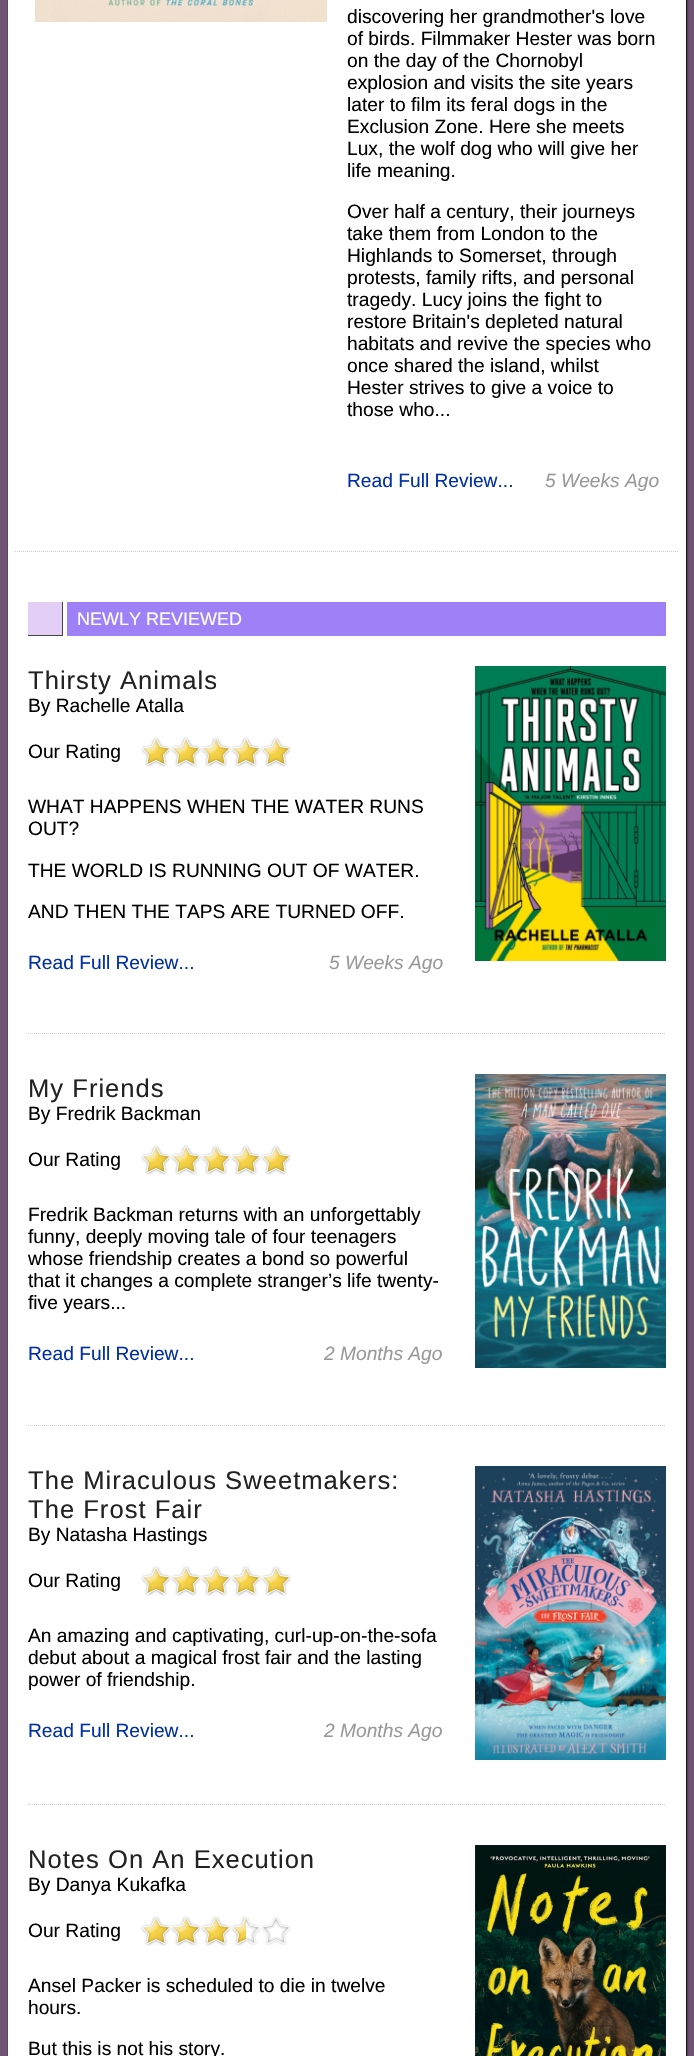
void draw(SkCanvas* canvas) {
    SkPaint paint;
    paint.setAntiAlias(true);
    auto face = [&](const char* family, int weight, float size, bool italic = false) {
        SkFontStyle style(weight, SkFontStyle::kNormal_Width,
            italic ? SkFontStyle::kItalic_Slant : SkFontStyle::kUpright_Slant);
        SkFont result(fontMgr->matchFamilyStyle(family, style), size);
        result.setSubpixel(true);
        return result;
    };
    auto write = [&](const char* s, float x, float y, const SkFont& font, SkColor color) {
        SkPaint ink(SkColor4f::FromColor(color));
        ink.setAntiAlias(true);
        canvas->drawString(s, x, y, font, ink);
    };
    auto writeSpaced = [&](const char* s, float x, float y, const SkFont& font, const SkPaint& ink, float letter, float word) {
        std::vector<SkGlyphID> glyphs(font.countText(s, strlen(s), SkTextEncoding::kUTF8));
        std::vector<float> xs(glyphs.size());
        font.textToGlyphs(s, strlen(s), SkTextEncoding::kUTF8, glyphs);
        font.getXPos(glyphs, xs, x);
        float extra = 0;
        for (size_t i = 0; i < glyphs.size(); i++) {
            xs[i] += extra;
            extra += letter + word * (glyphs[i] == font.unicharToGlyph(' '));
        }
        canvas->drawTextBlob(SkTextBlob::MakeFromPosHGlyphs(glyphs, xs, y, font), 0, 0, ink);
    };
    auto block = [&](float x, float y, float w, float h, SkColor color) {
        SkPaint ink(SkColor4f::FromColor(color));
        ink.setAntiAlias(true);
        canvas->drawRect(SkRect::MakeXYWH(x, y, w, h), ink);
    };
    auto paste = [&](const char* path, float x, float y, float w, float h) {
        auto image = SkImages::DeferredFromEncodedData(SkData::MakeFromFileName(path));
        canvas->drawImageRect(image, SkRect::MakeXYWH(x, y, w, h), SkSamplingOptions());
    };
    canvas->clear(SkColorSetRGB(111, 85, 115));
    paint.setColor(SK_ColorBLACK);
    paint.setMaskFilter(SkMaskFilter::MakeBlur(kNormal_SkBlurStyle, 1));
    canvas->drawRoundRect(SkRect::MakeXYWH(9, -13, 678, 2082), 10, 10, paint);
    paint.setMaskFilter(nullptr);
    paint.setMaskFilter(SkMaskFilter::MakeBlur(kNormal_SkBlurStyle, 0.5f));
    canvas->drawRoundRect(SkRect::MakeXYWH(8, -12, 678, 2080), 10, 10, paint);
    paint.setMaskFilter(nullptr);
    block(8, 0, 678, 2056, SK_ColorWHITE);
    paint.setStyle(SkPaint::kStroke_Style);
    paint.setStrokeWidth(1);
    paint.setColor(SkColorSetRGB(204, 204, 204));
    paint.setPathEffect(SkDashPathEffect::Make({{1, 1}}, 0));
    canvas->drawPath(SkPathBuilder().moveTo(15, 551.5f).lineTo(679, 551.5f).detach(), paint);
    paint.setPathEffect(nullptr);
    paste("pic1.png", 35, 0, 292, 22);
    auto kFont1 = face("Liberation Sans", 400, 19.2f);
    write("discovering her grandmother's love", 347, 23, kFont1, SK_ColorBLACK);
    write("of birds. Filmmaker Hester was born", 347, 45, kFont1, SK_ColorBLACK);
    write("on the day of the Chornobyl", 347, 67, kFont1, SK_ColorBLACK);
    write("explosion and visits the site years", 347, 89, kFont1, SK_ColorBLACK);
    write("later to film its feral dogs in the", 347, 111, kFont1, SK_ColorBLACK);
    write("Exclusion Zone. Here she meets", 347, 133, kFont1, SK_ColorBLACK);
    write("Lux, the wolf dog who will give her", 347, 155, kFont1, SK_ColorBLACK);
    write("life meaning.", 347, 177, kFont1, SK_ColorBLACK);
    write("Over half a century, their journeys", 347, 218, kFont1, SK_ColorBLACK);
    write("take them from London to the", 347, 240, kFont1, SK_ColorBLACK);
    write("Highlands to Somerset, through", 347, 262, kFont1, SK_ColorBLACK);
    write("protests, family rifts, and personal", 347, 284, kFont1, SK_ColorBLACK);
    write("tragedy. Lucy joins the fight to", 347, 306, kFont1, SK_ColorBLACK);
    write("restore Britain's depleted natural", 347, 328, kFont1, SK_ColorBLACK);
    write("habitats and revive the species who", 347, 350, kFont1, SK_ColorBLACK);
    write("once shared the island, whilst", 347, 372, kFont1, SK_ColorBLACK);
    write("Hester strives to give a voice to", 347, 394, kFont1, SK_ColorBLACK);
    write("those who...", 347, 416, kFont1, SK_ColorBLACK);
    write("Read Full Review...", 347, 487, kFont1, SkColorSetRGB(0, 47, 166));
    auto kFont2 = face("Liberation Sans", 400, 19.2f, true);
    write("5 Weeks Ago", 545, 487, kFont2, SkColorSetRGB(153, 153, 153));
    block(67, 602, 599, 34, SkColorSetRGB(159, 129, 247));
    block(28, 602, 34, 33, SkColorSetRGB(227, 206, 246));
    canvas->save();
    canvas->clipRect(SkRect::MakeXYWH(28, 602, 35, 34));
    paint.setStyle(SkPaint::kFill_Style);
    paint.setColor(SkColorSetRGB(68, 68, 68));
    canvas->drawPath(SkPathBuilder(SkPathFillType::kEvenOdd).moveTo(-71, 503).lineTo(162, 503).lineTo(162, 735).lineTo(-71, 735).close().moveTo(27, 601).lineTo(62, 601).lineTo(62, 635).lineTo(27, 635).close().detach(), paint);
    canvas->restore();
    auto kFont3 = face("Liberation Sans", 400, 18);
    write("NEWLY REVIEWED", 77, 625, kFont3, SK_ColorWHITE);
    paint.setStyle(SkPaint::kStroke_Style);
    paint.setColor(SkColorSetRGB(204, 204, 204));
    paint.setPathEffect(SkDashPathEffect::Make({{1, 1}}, 0));
    canvas->drawPath(SkPathBuilder().moveTo(28, 1033.5f).lineTo(666, 1033.5f).detach(), paint);
    paint.setPathEffect(nullptr);
    auto kFont4 = face("Liberation Sans", 400, 25.6f);
    paint.setStyle(SkPaint::kFill_Style);
    paint.setColor(SkColorSetRGB(34, 34, 34));
    writeSpaced("Thirsty Animals", 28, 689, kFont4, paint, 1, 0);
    write("By Rachelle Atalla", 28, 712, kFont1, SK_ColorBLACK);
    write("Our Rating", 28, 758, kFont1, SK_ColorBLACK);
    paste("pic2.png", 141, 737, 150, 30);
    write("WHAT HAPPENS WHEN THE WATER RUNS", 28, 813, kFont1, SK_ColorBLACK);
    write("OUT?", 28, 835, kFont1, SK_ColorBLACK);
    write("THE WORLD IS RUNNING OUT OF WATER.", 28, 877, kFont1, SK_ColorBLACK);
    write("AND THEN THE TAPS ARE TURNED OFF.", 28, 918, kFont1, SK_ColorBLACK);
    write("Read Full Review...", 28, 969, kFont1, SkColorSetRGB(0, 47, 166));
    write("5 Weeks Ago", 329, 969, kFont2, SkColorSetRGB(153, 153, 153));
    paste("pic3.png", 475, 666, 191, 295);
    paint.setStyle(SkPaint::kStroke_Style);
    paint.setColor(SkColorSetRGB(204, 204, 204));
    paint.setPathEffect(SkDashPathEffect::Make({{1, 1}}, 0));
    canvas->drawPath(SkPathBuilder().moveTo(28, 1425.5f).lineTo(666, 1425.5f).detach(), paint);
    paint.setPathEffect(nullptr);
    paint.setStyle(SkPaint::kFill_Style);
    paint.setColor(SkColorSetRGB(34, 34, 34));
    writeSpaced("My Friends", 28, 1097, kFont4, paint, 1, 0);
    write("By Fredrik Backman", 28, 1120, kFont1, SK_ColorBLACK);
    write("Our Rating", 28, 1166, kFont1, SK_ColorBLACK);
    paste("pic2.png", 141, 1145, 150, 30);
    write("Fredrik Backman returns with an unforgettably", 28, 1221, kFont1, SK_ColorBLACK);
    write("funny, deeply moving tale of four teenagers", 28, 1243, kFont1, SK_ColorBLACK);
    write("whose friendship creates a bond so powerful", 28, 1265, kFont1, SK_ColorBLACK);
    write("that it changes a complete stranger’s life twenty-", 28, 1287, kFont1, SK_ColorBLACK);
    write("five years...", 28, 1309, kFont1, SK_ColorBLACK);
    write("Read Full Review...", 28, 1360, kFont1, SkColorSetRGB(0, 47, 166));
    write("2 Months Ago", 324, 1360, kFont2, SkColorSetRGB(153, 153, 153));
    paste("pic4.png", 475, 1074, 191, 294);
    paint.setStyle(SkPaint::kStroke_Style);
    paint.setColor(SkColorSetRGB(204, 204, 204));
    paint.setPathEffect(SkDashPathEffect::Make({{1, 1}}, 0));
    canvas->drawPath(SkPathBuilder().moveTo(28, 1804.5f).lineTo(666, 1804.5f).detach(), paint);
    paint.setPathEffect(nullptr);
    paint.setStyle(SkPaint::kFill_Style);
    paint.setColor(SkColorSetRGB(34, 34, 34));
    writeSpaced("The Miraculous Sweetmakers:", 28, 1489, kFont4, paint, 1, 0);
    writeSpaced("The Frost Fair", 28, 1518, kFont4, paint, 1, 0);
    write("By Natasha Hastings", 28, 1541, kFont1, SK_ColorBLACK);
    write("Our Rating", 28, 1587, kFont1, SK_ColorBLACK);
    paste("pic2.png", 141, 1566, 150, 30);
    write("An amazing and captivating, curl-up-on-the-sofa", 28, 1642, kFont1, SK_ColorBLACK);
    write("debut about a magical frost fair and the lasting", 28, 1664, kFont1, SK_ColorBLACK);
    write("power of friendship.", 28, 1686, kFont1, SK_ColorBLACK);
    write("Read Full Review...", 28, 1737, kFont1, SkColorSetRGB(0, 47, 166));
    write("2 Months Ago", 324, 1737, kFont2, SkColorSetRGB(153, 153, 153));
    paste("pic5.png", 475, 1466, 191, 294);
    writeSpaced("Notes On An Execution", 28, 1868, kFont4, paint, 1, 0);
    write("By Danya Kukafka", 28, 1891, kFont1, SK_ColorBLACK);
    write("Our Rating", 28, 1937, kFont1, SK_ColorBLACK);
    paste("pic6.png", 246, 1916, 45, 30);
    paste("pic7.png", 141, 1916, 105, 30);
    write("Ansel Packer is scheduled to die in twelve", 28, 1992, kFont1, SK_ColorBLACK);
    write("hours.", 28, 2014, kFont1, SK_ColorBLACK);
    write("But this is not his story.", 28, 2055, kFont1, SK_ColorBLACK);
    paste("pic8.png", 475, 1845, 191, 211);
}
